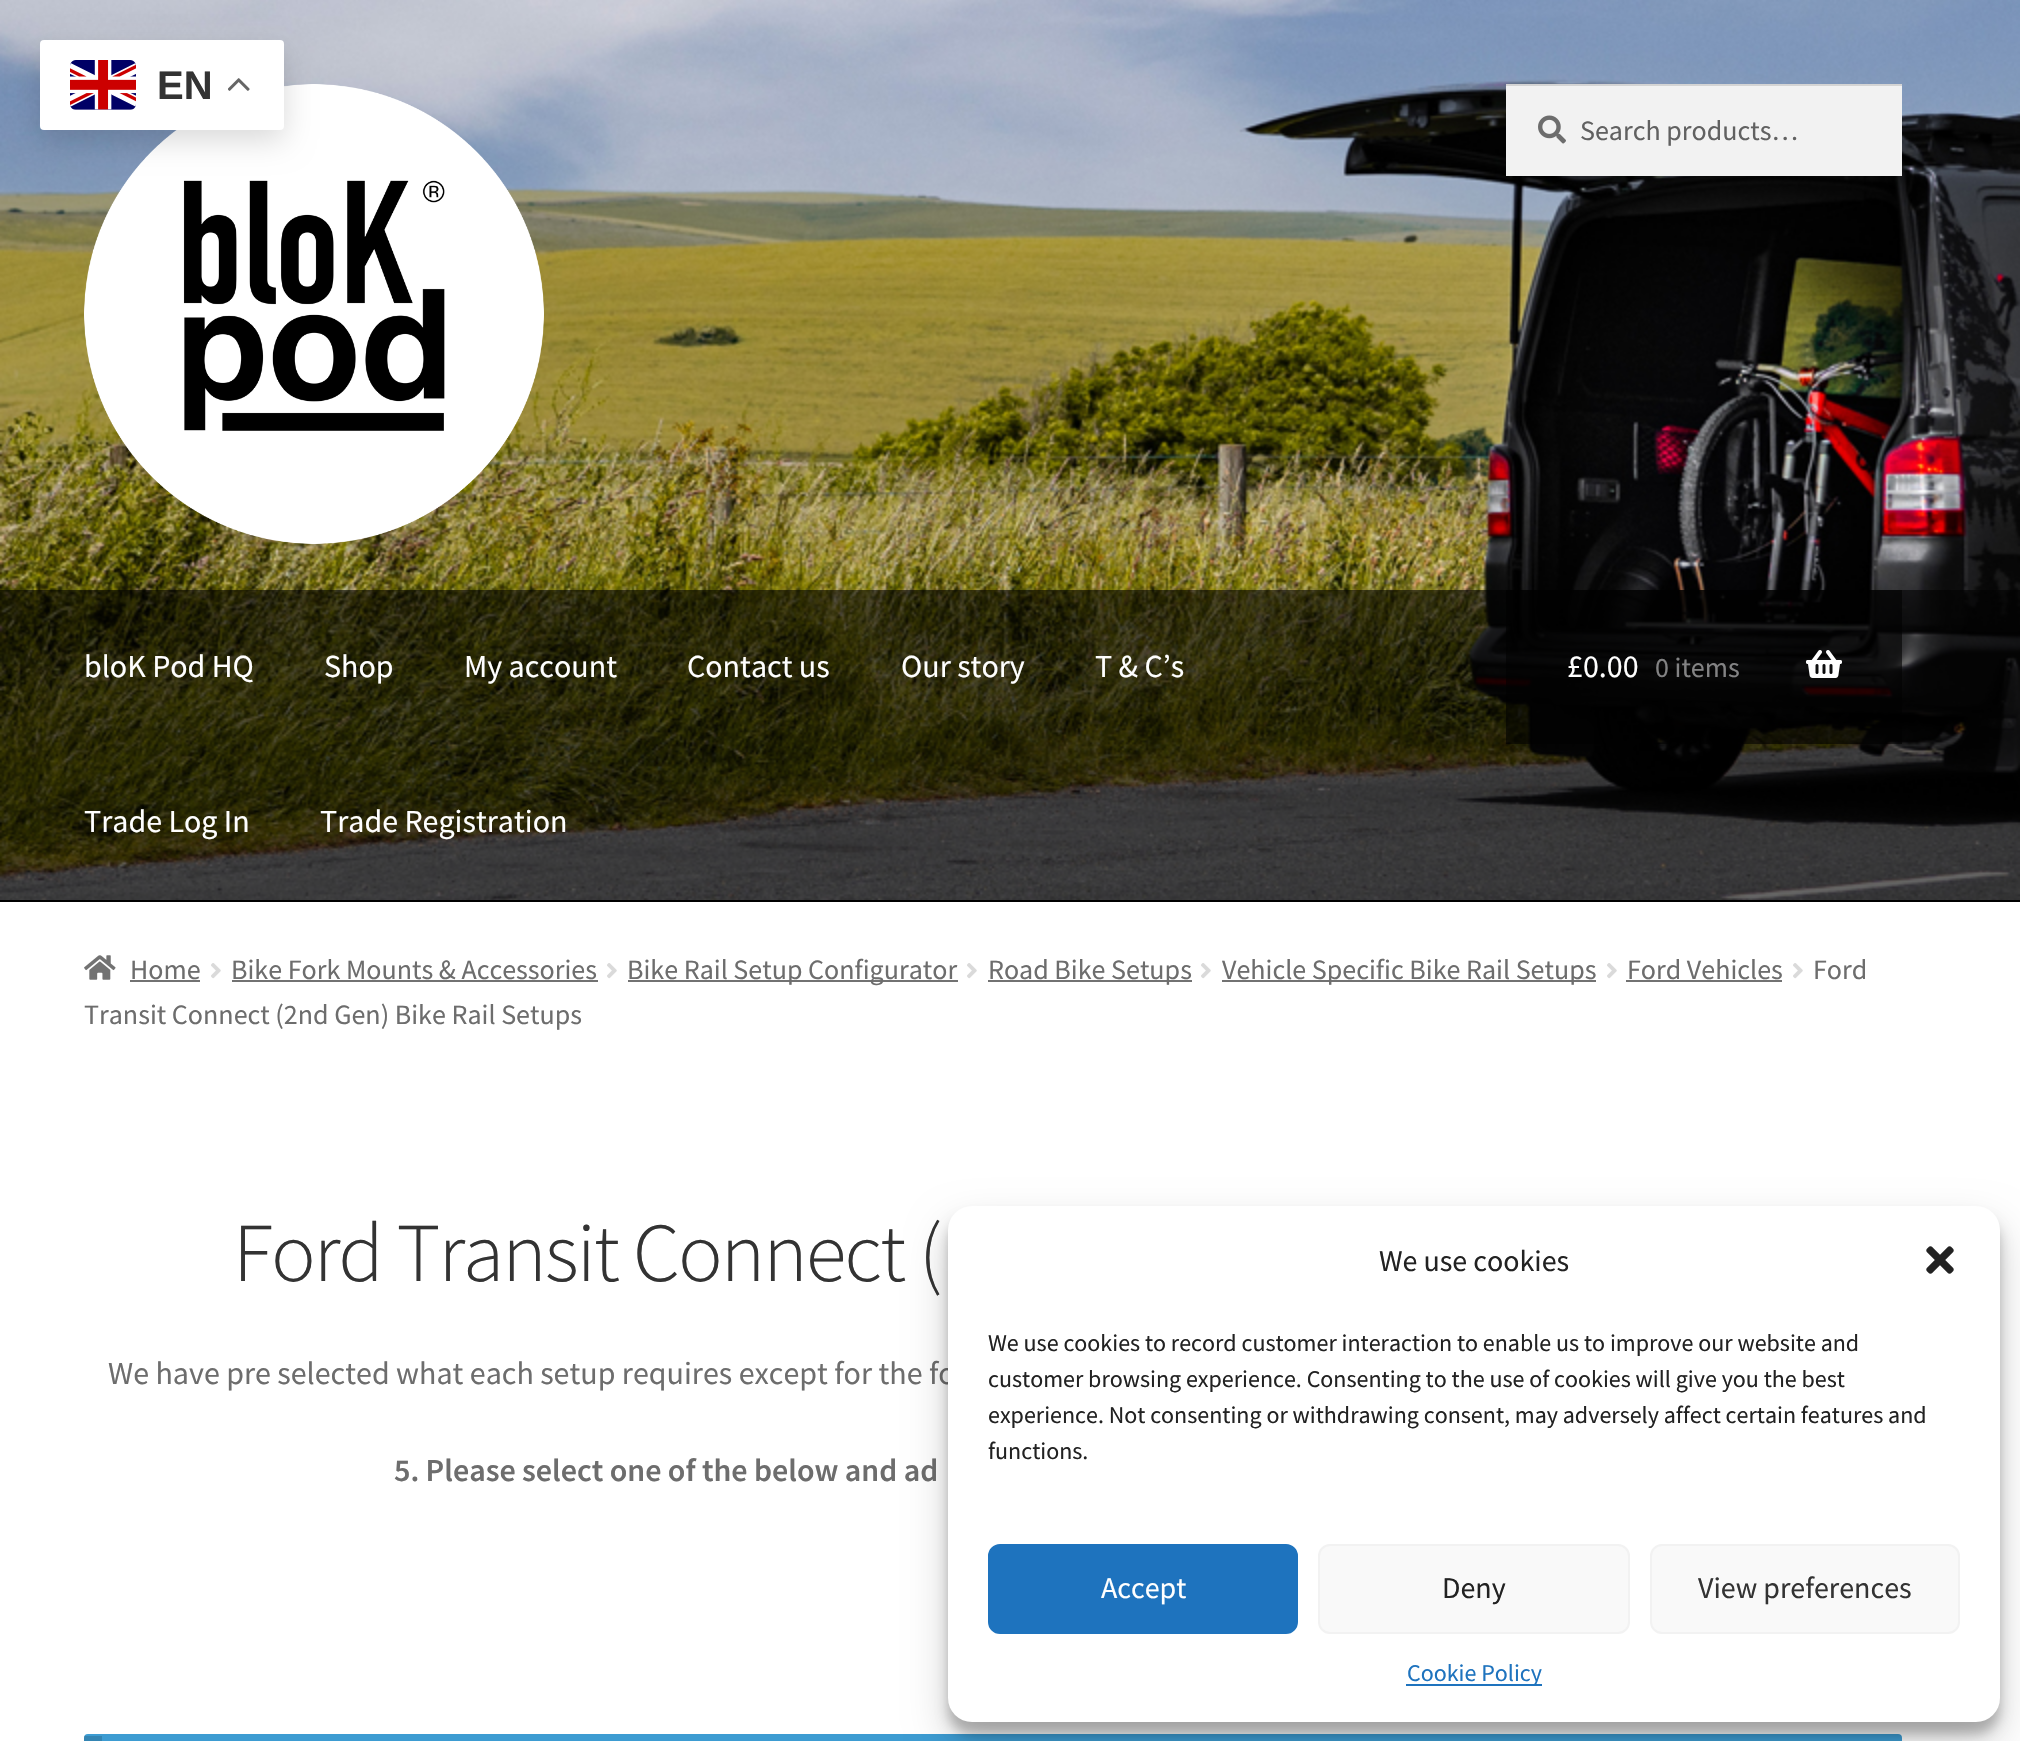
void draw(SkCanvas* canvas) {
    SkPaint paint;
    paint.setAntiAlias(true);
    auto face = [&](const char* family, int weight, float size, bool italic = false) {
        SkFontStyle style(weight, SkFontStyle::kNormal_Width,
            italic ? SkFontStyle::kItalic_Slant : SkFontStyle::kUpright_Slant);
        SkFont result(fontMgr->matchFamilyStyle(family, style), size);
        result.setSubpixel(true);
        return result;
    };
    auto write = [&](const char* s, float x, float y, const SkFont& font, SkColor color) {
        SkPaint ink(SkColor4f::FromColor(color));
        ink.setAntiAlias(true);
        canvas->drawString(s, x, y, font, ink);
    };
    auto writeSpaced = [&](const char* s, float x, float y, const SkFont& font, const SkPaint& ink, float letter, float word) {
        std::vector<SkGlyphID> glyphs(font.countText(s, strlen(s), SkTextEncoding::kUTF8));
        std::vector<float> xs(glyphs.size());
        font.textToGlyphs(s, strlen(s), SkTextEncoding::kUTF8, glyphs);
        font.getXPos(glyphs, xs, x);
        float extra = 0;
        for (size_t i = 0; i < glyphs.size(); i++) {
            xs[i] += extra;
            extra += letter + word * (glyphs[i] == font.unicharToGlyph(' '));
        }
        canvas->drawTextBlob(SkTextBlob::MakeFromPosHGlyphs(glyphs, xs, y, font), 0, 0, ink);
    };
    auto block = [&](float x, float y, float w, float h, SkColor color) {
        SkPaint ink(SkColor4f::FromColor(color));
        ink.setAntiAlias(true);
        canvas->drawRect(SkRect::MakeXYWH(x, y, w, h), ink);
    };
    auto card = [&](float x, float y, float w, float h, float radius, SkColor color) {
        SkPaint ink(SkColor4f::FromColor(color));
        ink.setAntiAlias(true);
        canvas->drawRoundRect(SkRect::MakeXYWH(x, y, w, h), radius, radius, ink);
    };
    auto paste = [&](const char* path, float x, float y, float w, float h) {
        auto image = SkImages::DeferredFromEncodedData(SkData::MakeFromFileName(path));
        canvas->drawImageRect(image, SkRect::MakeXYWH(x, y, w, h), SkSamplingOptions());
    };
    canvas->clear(SK_ColorWHITE);
    paste("pic3.png", 0, 0, 2020, 900);
    paste("pic4.png", 84, 84, 460, 460);
    paint.setColor(SkColorSetARGB(38, 0, 0, 0));
    paint.setMaskFilter(SkMaskFilter::MakeBlur(kNormal_SkBlurStyle, 15));
    canvas->drawRoundRect(SkRect::MakeXYWH(40, 50, 244, 90), 4, 4, paint);
    paint.setMaskFilter(nullptr);
    card(40, 40, 244, 90, 4, SK_ColorWHITE);
    paste("pic1.png", 70, 60, 66, 50);
    auto kFont1 = face("Liberation Sans", 700, 40);
    write("EN", 157, 99, kFont1, SkColorSetRGB(51, 51, 51));
    paste("pic2.png", 228, 78, 22, 13);
    block(0, 900, 2020, 2, SK_ColorBLACK);
    block(1506, 86, 396, 90, SkColorSetRGB(242, 242, 242));
    paste("pic5.png", 1538, 115, 28, 29);
    block(1506, 84, 396, 2, SkColorSetRGB(212, 212, 212));
    auto kFont2 = face("Source Sans Pro", 400, 28);
    write("Search products…", 1580, 140, kFont2, SkColorSetRGB(97, 97, 97));
    block(0, 590, 2020, 310, SkColorSetARGB(153, 0, 0, 0));
    auto kFont3 = face("Source Sans Pro", 400, 32);
    write("bloK Pod HQ", 84, 677, kFont3, SK_ColorWHITE);
    write("Shop", 324, 677, kFont3, SK_ColorWHITE);
    write("My account", 464, 677, kFont3, SK_ColorWHITE);
    write("Contact us", 687, 677, kFont3, SK_ColorWHITE);
    write("Our story", 901, 677, kFont3, SK_ColorWHITE);
    write("T & C’s", 1095, 677, kFont3, SK_ColorWHITE);
    write("Trade Log In", 84, 832, kFont3, SK_ColorWHITE);
    write("Trade Registration", 320, 832, kFont3, SK_ColorWHITE);
    block(1506, 590, 396, 154, SkColorSetARGB(153, 0, 0, 0));
    write("£0.00", 1567, 677, kFont3, SK_ColorWHITE);
    write("0 items", 1655, 677, kFont2, SkColorSetRGB(131, 131, 132));
    paste("pic6.png", 1806, 650, 36, 28);
    paste("pic7.png", 84, 955, 32, 25);
    write("Home", 130, 979, kFont2, SkColorSetRGB(109, 109, 109));
    block(130, 980, 70, 2, SkColorSetRGB(114, 114, 114));
    paste("pic8.png", 211, 963, 10, 16);
    write("Bike Fork Mounts & Accessories", 231, 979, kFont2, SkColorSetRGB(109, 109, 109));
    block(232, 980, 366, 2, SkColorSetRGB(114, 114, 114));
    paste("pic8.png", 607, 963, 10, 16);
    block(628, 980, 330, 2, SkColorSetRGB(114, 114, 114));
    write("Bike Rail Setup Configurator", 627, 979, kFont2, SkColorSetRGB(109, 109, 109));
    paste("pic8.png", 967, 963, 10, 16);
    block(988, 980, 204, 2, SkColorSetRGB(114, 114, 114));
    write("Road Bike Setups", 988, 979, kFont2, SkColorSetRGB(109, 109, 109));
    paste("pic8.png", 1201, 963, 10, 16);
    block(1222, 980, 374, 2, SkColorSetRGB(114, 114, 114));
    write("Vehicle Specific Bike Rail Setups", 1222, 979, kFont2, SkColorSetRGB(109, 109, 109));
    paste("pic8.png", 1607, 963, 10, 16);
    write("Ford Vehicles", 1627, 979, kFont2, SkColorSetRGB(109, 109, 109));
    block(1626, 980, 156, 2, SkColorSetRGB(114, 114, 114));
    paste("pic8.png", 1793, 963, 10, 16);
    write("Ford", 1813, 979, kFont2, SkColorSetRGB(109, 109, 109));
    write("Transit Connect (2nd Gen) Bike Rail Setups", 84, 1024, kFont2, SkColorSetRGB(109, 109, 109));
    auto kFont4 = face("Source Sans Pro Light", 300, 83.75f);
    paint.setColor(SkColorSetRGB(51, 51, 51));
    writeSpaced("Ford Transit Connect (", 233, 1281, kFont4, paint, -2, 0);
    write("We have pre selected what each setup requires except for the fo", 108, 1384, kFont3, SkColorSetRGB(109, 109, 109));
    auto kFont5 = face("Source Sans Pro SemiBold", 600, 32);
    write("5. Please select one of the below and ad", 394, 1481, kFont5, SkColorSetRGB(109, 109, 109));
    card(84, 1734, 1818, 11, 4, SkColorSetRGB(61, 156, 210));
    block(84, 1736, 18, 5, SkColorSetARGB(38, 0, 0, 0));
    paint.setColor(SkColorSetARGB(59, 0, 0, 0));
    paint.setMaskFilter(SkMaskFilter::MakeBlur(kNormal_SkBlurStyle, 6));
    canvas->drawRoundRect(SkRect::MakeXYWH(948, 1218, 1052, 516), 24, 24, paint);
    paint.setMaskFilter(nullptr);
    paint.setColor(SkColorSetARGB(48, 0, 0, 0));
    paint.setMaskFilter(SkMaskFilter::MakeBlur(kNormal_SkBlurStyle, 20));
    canvas->drawRoundRect(SkRect::MakeXYWH(948, 1226, 1052, 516), 24, 24, paint);
    paint.setMaskFilter(nullptr);
    card(948, 1206, 1052, 516, 24, SK_ColorWHITE);
    auto kFont6 = face("Source Sans Pro", 400, 30);
    write("We use cookies", 1379, 1271, kFont6, SkColorSetRGB(34, 34, 34));
    paste("pic9.png", 1926, 1246, 28, 28);
    auto kFont7 = face("Source Sans Pro", 400, 24);
    write("We use cookies to record customer interaction to enable us to improve our website and", 988, 1351, kFont7, SkColorSetRGB(34, 34, 34));
    write("customer browsing experience. Consenting to the use of cookies will give you the best", 988, 1387, kFont7, SkColorSetRGB(34, 34, 34));
    write("experience. Not consenting or withdrawing consent, may adversely affect certain features and", 988, 1423, kFont7, SkColorSetRGB(34, 34, 34));
    write("functions.", 988, 1459, kFont7, SkColorSetRGB(34, 34, 34));
    paint.setColor(SkColorSetRGB(30, 115, 190));
    canvas->drawRoundRect(SkRect::MakeXYWH(989, 1545, 308, 88), 11, 11, paint);
    paint.setStyle(SkPaint::kStroke_Style);
    paint.setStrokeWidth(2);
    canvas->drawRoundRect(SkRect::MakeXYWH(989, 1545, 308, 88), 11, 11, paint);
    write("Accept", 1101, 1598, kFont6, SK_ColorWHITE);
    paint.setStyle(SkPaint::kFill_Style);
    paint.setColor(SkColorSetRGB(249, 249, 249));
    canvas->drawRoundRect(SkRect::MakeXYWH(1319, 1545, 310, 88), 11, 11, paint);
    paint.setStyle(SkPaint::kStroke_Style);
    paint.setColor(SkColorSetRGB(242, 242, 242));
    canvas->drawRoundRect(SkRect::MakeXYWH(1319, 1545, 310, 88), 11, 11, paint);
    write("Deny", 1442, 1598, kFont6, SkColorSetRGB(34, 34, 34));
    paint.setStyle(SkPaint::kFill_Style);
    paint.setColor(SkColorSetRGB(249, 249, 249));
    canvas->drawRoundRect(SkRect::MakeXYWH(1651, 1545, 308, 88), 11, 11, paint);
    paint.setStyle(SkPaint::kStroke_Style);
    paint.setColor(SkColorSetRGB(242, 242, 242));
    canvas->drawRoundRect(SkRect::MakeXYWH(1651, 1545, 308, 88), 11, 11, paint);
    write("View preferences", 1698, 1598, kFont6, SkColorSetRGB(51, 51, 51));
    block(1406, 1684, 136, 2, SkColorSetRGB(30, 115, 190));
    write("Cookie Policy", 1407, 1681, kFont7, SkColorSetRGB(30, 115, 190));
}
